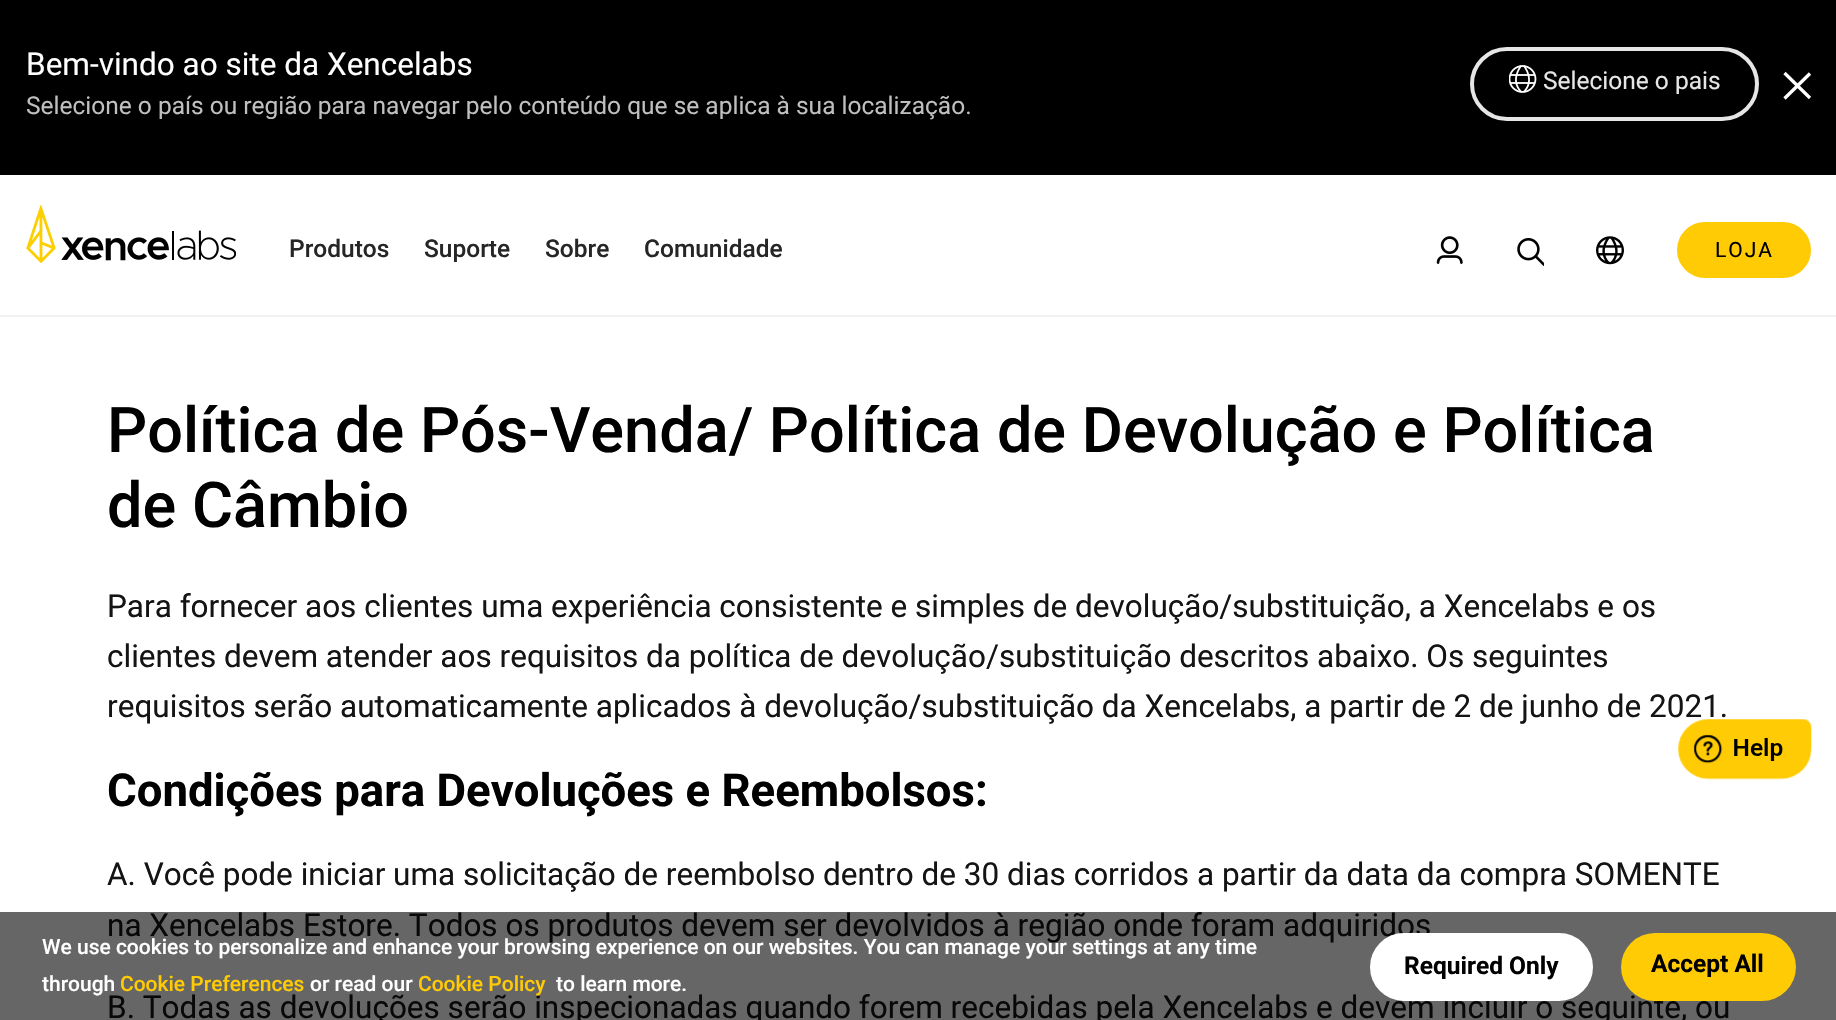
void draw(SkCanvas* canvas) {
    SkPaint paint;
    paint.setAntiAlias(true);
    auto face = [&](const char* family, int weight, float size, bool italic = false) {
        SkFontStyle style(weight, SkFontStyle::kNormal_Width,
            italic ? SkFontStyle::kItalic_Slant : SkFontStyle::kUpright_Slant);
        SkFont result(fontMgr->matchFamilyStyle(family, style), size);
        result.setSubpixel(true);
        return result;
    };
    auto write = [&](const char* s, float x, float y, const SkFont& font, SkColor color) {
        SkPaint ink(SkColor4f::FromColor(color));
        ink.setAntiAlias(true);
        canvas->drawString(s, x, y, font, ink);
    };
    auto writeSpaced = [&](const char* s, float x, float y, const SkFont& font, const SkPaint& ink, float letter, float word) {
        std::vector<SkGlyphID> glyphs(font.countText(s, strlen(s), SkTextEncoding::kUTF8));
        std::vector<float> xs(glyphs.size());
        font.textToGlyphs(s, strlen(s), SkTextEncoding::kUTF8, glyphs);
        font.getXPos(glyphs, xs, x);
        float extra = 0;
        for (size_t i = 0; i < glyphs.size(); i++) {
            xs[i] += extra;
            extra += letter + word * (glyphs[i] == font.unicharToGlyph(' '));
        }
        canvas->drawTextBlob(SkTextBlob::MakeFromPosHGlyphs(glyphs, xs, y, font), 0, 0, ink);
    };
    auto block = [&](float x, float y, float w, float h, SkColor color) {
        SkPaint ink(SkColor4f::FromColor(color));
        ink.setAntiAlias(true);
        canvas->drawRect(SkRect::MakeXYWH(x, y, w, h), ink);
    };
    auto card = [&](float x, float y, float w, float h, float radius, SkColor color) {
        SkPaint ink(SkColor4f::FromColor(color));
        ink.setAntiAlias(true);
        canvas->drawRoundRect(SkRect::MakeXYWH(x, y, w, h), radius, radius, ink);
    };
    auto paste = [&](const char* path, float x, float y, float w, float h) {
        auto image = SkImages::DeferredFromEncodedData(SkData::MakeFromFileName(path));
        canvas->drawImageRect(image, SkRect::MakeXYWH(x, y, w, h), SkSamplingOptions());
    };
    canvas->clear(SK_ColorWHITE);
    block(0, 912, 1836, 108, SkColorSetRGB(102, 102, 102));
    block(0, 0, 1836, 175, SK_ColorBLACK);
    auto kFont1 = face("Roboto", 400, 31.5f);
    write("Bem-vindo ao site da Xencelabs", 26, 75, kFont1, SK_ColorWHITE);
    auto kFont2 = face("Roboto", 400, 24.5f);
    write("Selecione o país ou região para navegar pelo conteúdo que se aplica à sua localização.", 26, 114, kFont2, SkColorSetRGB(191, 191, 191));
    paint.setStyle(SkPaint::kStroke_Style);
    paint.setStrokeWidth(4);
    paint.setColor(SkColorSetRGB(230, 230, 230));
    canvas->drawRoundRect(SkRect::MakeXYWH(1472, 49, 285, 70), 35, 35, paint);
    paste("pic1.png", 1509, 65, 28, 28);
    write("Selecione o pais", 1543, 89, kFont2, SkColorSetRGB(230, 230, 230));
    paint.setStrokeWidth(3.3f);
    paint.setColor(SK_ColorWHITE);
    canvas->drawPath(SkPathBuilder().moveTo(1784.5f, 73).lineTo(1810, 98).moveTo(1810, 73.5f).lineTo(1784.5f, 98.5f).detach(), paint);
    paint.setStyle(SkPaint::kFill_Style);
    paint.setColor(SkColorSetRGB(242, 242, 242));
    canvas->drawPath(SkPathBuilder().moveTo(0, 315).lineTo(0, 317).lineTo(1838, 317).lineTo(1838, 177).lineTo(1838, 315).close().detach(), paint);
    paste("pic2.png", 26, 205, 210, 58);
    auto kFont3 = face("Roboto", 500, 24.5f);
    write("Produtos", 289, 257, kFont3, SkColorSetRGB(38, 38, 38));
    write("Suporte", 424, 257, kFont3, SkColorSetRGB(38, 38, 38));
    write("Sobre", 545, 257, kFont3, SkColorSetRGB(38, 38, 38));
    write("Comunidade", 644, 257, kFont3, SkColorSetRGB(38, 38, 38));
    paste("pic3.png", 1436, 236, 27, 28);
    paste("pic4.png", 1517, 238, 27, 28);
    paste("pic5.png", 1596, 236, 28, 29);
    paint.setColor(SkColorSetRGB(255, 203, 5));
    canvas->drawRoundRect(SkRect::MakeXYWH(1679, 224, 130, 52), 26, 26, paint);
    paint.setStyle(SkPaint::kStroke_Style);
    paint.setStrokeWidth(4);
    canvas->drawRoundRect(SkRect::MakeXYWH(1679, 224, 130, 52), 26, 26, paint);
    auto kFont4 = face("Roboto", 400, 21);
    paint.setStyle(SkPaint::kFill_Style);
    paint.setColor(SK_ColorBLACK);
    writeSpaced("LOJA", 1715, 257, kFont4, paint, 2, 0);
    auto kFont5 = face("Roboto", 500, 63);
    write("Política de Pós-Venda/ Política de Devolução e Política", 107, 452, kFont5, SK_ColorBLACK);
    write("de Câmbio", 107, 527, kFont5, SK_ColorBLACK);
    write("Para fornecer aos clientes uma experiência consistente e simples de devolução/substituição, a Xencelabs e os", 107, 617, kFont1, SkColorSetRGB(20, 20, 20));
    write("clientes devem atender aos requisitos da política de devolução/substituição descritos abaixo. Os seguintes", 107, 667, kFont1, SkColorSetRGB(20, 20, 20));
    write("requisitos serão automaticamente aplicados à devolução/substituição da Xencelabs, a partir de 2 de junho de 2021.", 107, 717, kFont1, SkColorSetRGB(20, 20, 20));
    auto kFont6 = face("Roboto", 700, 45.5f);
    write("Condições para Devoluções e Reembolsos:", 107, 806, kFont6, SK_ColorBLACK);
    write("A. Você pode iniciar uma solicitação de reembolso dentro de 30 dias corridos a partir da data da compra SOMENTE", 107, 885, kFont1, SkColorSetRGB(20, 20, 20));
    write("na Xencelabs Estore. Todos os produtos devem ser devolvidos à região onde foram adquiridos", 107, 936, kFont1, SkColorSetRGB(8, 8, 8));
    write("B. Todas as devoluções serão inspecionadas quando forem recebidas pela Xencelabs e devem incluir o seguinte, ou", 107, 1018, kFont1, SkColorSetRGB(8, 8, 8));
    paste("pic6.png", 1678, 719, 134, 61);
    auto kFont7 = face("Roboto", 500, 21);
    write("We use cookies to personalize and enhance your browsing experience on our websites. You can manage your settings at any time", 42, 954, kFont7, SK_ColorWHITE);
    write("through", 42, 991, kFont7, SK_ColorWHITE);
    write("Cookie Preferences", 120, 991, kFont7, SkColorSetRGB(255, 203, 5));
    write("or read our", 310, 991, kFont7, SK_ColorWHITE);
    write("Cookie Policy", 418, 991, kFont7, SkColorSetRGB(255, 203, 5));
    write("to learn more.", 556, 991, kFont7, SK_ColorWHITE);
    paint.setColor(SK_ColorWHITE);
    canvas->drawRoundRect(SkRect::MakeXYWH(1371, 934, 221, 66), 33, 33, paint);
    paint.setStyle(SkPaint::kStroke_Style);
    paint.setStrokeWidth(2);
    canvas->drawRoundRect(SkRect::MakeXYWH(1371, 934, 221, 66), 33, 33, paint);
    auto kFont8 = face("Roboto", 700, 24.5f);
    write("Required Only", 1404, 974, kFont8, SK_ColorBLACK);
    card(1621, 933, 175, 68, 34, SkColorSetRGB(255, 203, 5));
    write("Accept All", 1651, 972, kFont8, SK_ColorBLACK);
}
